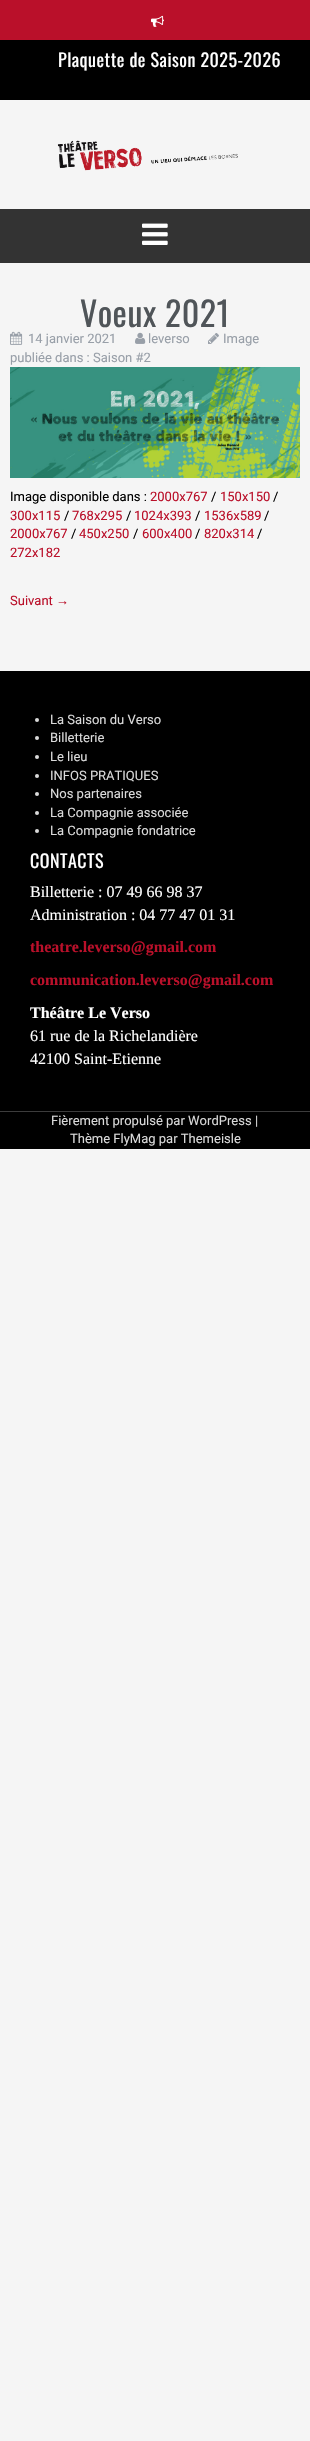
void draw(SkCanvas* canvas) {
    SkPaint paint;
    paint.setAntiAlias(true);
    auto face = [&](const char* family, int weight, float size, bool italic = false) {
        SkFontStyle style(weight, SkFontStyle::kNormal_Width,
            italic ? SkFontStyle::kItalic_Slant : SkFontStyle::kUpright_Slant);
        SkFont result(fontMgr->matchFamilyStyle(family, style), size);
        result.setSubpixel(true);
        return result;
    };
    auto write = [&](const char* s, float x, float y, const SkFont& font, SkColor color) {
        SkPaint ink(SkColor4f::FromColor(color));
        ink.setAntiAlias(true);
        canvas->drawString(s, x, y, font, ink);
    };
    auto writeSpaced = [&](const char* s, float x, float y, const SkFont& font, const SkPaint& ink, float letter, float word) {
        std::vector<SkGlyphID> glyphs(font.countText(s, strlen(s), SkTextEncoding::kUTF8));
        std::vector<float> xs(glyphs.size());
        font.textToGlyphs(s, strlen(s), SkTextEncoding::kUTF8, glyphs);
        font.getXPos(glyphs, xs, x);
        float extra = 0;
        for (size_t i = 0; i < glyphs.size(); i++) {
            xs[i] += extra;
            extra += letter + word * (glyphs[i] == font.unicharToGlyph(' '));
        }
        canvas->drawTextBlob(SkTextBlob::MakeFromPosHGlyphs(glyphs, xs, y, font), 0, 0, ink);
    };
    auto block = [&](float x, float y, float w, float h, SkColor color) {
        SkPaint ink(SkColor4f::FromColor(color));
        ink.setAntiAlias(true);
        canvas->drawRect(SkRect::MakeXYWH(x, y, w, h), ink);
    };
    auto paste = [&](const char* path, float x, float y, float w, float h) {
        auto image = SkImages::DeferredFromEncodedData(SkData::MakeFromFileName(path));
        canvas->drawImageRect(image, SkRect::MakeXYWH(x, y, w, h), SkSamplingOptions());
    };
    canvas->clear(SkColorSetRGB(245, 245, 245));
    block(0, 0, 310, 40, SkColorSetRGB(186, 16, 42));
    paste("pic1.png", 151, 15, 13, 12);
    block(0, 40, 310, 60, SK_ColorBLACK);
    auto kFont1 = face("Oswald", 400, 18);
    paint.setColor(SK_ColorWHITE);
    writeSpaced("Plaquette de Saison 2025-2026", 58, 67, kFont1, paint, 0.5f, 0);
    paste("pic2.png", 57, 140, 181, 31);
    block(0, 209, 310, 54, SkColorSetRGB(51, 51, 51));
    paste("pic3.png", 142, 223, 26, 22);
    auto kFont2 = face("Oswald", 400, 34);
    paint.setColor(SkColorSetRGB(80, 85, 89));
    writeSpaced("Voeux 2021", 80, 327, kFont2, paint, 0.5f, 0);
    paste("pic4.png", 208, 333, 11, 11);
    auto kFont3 = face("Roboto", 400, 13);
    write("Image", 223, 343, kFont3, SkColorSetRGB(152, 159, 168));
    write("publiée dans : Saison #2", 10, 362, kFont3, SkColorSetRGB(152, 159, 168));
    paste("pic5.png", 10, 331, 13, 14);
    write("14 janvier 2021", 28, 343, kFont3, SkColorSetRGB(152, 159, 168));
    paste("pic6.png", 135, 332, 11, 12);
    write("leverso", 148, 343, kFont3, SkColorSetRGB(152, 159, 168));
    paste("pic7.png", 10, 367, 290, 111);
    write("Image disponible dans :", 10, 501, kFont3, SK_ColorBLACK);
    write("2000x767", 150, 501, kFont3, SkColorSetRGB(186, 16, 42));
    write("/", 211, 501, kFont3, SK_ColorBLACK);
    write("150x150", 220, 501, kFont3, SkColorSetRGB(186, 16, 42));
    write("/", 273, 501, kFont3, SK_ColorBLACK);
    write("300x115", 10, 520, kFont3, SkColorSetRGB(186, 16, 42));
    write("/", 64, 520, kFont3, SK_ColorBLACK);
    write("768x295", 72, 520, kFont3, SkColorSetRGB(186, 16, 42));
    write("/", 126, 520, kFont3, SK_ColorBLACK);
    write("1024x393", 134, 520, kFont3, SkColorSetRGB(186, 16, 42));
    write("/", 195, 520, kFont3, SK_ColorBLACK);
    write("1536x589", 204, 520, kFont3, SkColorSetRGB(186, 16, 42));
    write("/", 264, 520, kFont3, SK_ColorBLACK);
    write("2000x767", 10, 538, kFont3, SkColorSetRGB(186, 16, 42));
    write("/", 71, 538, kFont3, SK_ColorBLACK);
    write("450x250", 79, 538, kFont3, SkColorSetRGB(186, 16, 42));
    write("/", 133, 538, kFont3, SK_ColorBLACK);
    write("600x400", 142, 538, kFont3, SkColorSetRGB(186, 16, 42));
    write("/", 195, 538, kFont3, SK_ColorBLACK);
    write("820x314", 204, 538, kFont3, SkColorSetRGB(186, 16, 42));
    write("/", 257, 538, kFont3, SK_ColorBLACK);
    write("272x182", 10, 557, kFont3, SkColorSetRGB(186, 16, 42));
    write("Suivant", 10, 605, kFont3, SkColorSetRGB(186, 16, 42));
    auto kFont4 = face("Liberation Sans", 400, 13);
    write("→", 56, 605, kFont4, SkColorSetRGB(186, 16, 42));
    block(0, 671, 310, 440, SK_ColorBLACK);
    block(0, 1111, 310, 1, SkColorSetRGB(60, 60, 60));
    paint.setColor(SkColorSetRGB(218, 218, 218));
    canvas->drawCircle(37, 720, 2, paint);
    write("La Saison du Verso", 50, 724, kFont3, SkColorSetRGB(218, 218, 218));
    canvas->drawCircle(37, 738, 2, paint);
    write("Billetterie", 50, 742, kFont3, SkColorSetRGB(218, 218, 218));
    canvas->drawCircle(37, 757, 2, paint);
    write("Le lieu", 50, 761, kFont3, SkColorSetRGB(218, 218, 218));
    canvas->drawCircle(37, 776, 2, paint);
    write("INFOS PRATIQUES", 50, 780, kFont3, SkColorSetRGB(218, 218, 218));
    canvas->drawCircle(37, 794, 2, paint);
    write("Nos partenaires", 50, 798, kFont3, SkColorSetRGB(218, 218, 218));
    canvas->drawCircle(37, 813, 2, paint);
    write("La Compagnie associée", 50, 817, kFont3, SkColorSetRGB(218, 218, 218));
    canvas->drawCircle(37, 831, 2, paint);
    write("La Compagnie fondatrice", 50, 835, kFont3, SkColorSetRGB(218, 218, 218));
    paint.setColor(SK_ColorWHITE);
    writeSpaced("CONTACTS", 30, 868, kFont1, paint, 0.5f, 0);
    auto kFont5 = face("Liberation Serif", 400, 16);
    write("Billetterie : 07 49 66 98 37", 30, 897, kFont5, SK_ColorWHITE);
    write("Administration : 04 77 47 01 31", 30, 920, kFont5, SK_ColorWHITE);
    auto kFont6 = face("Liberation Serif", 700, 16);
    write("theatre.leverso@gmail.com", 30, 952, kFont6, SkColorSetRGB(186, 16, 42));
    write("communication.leverso@gmail.com", 30, 985, kFont6, SkColorSetRGB(186, 16, 42));
    write("Théâtre Le Verso", 30, 1018, kFont6, SK_ColorWHITE);
    write("61 rue de la Richelandière", 30, 1041, kFont5, SK_ColorWHITE);
    write("42100 Saint-Etienne", 30, 1064, kFont5, SK_ColorWHITE);
    block(0, 1112, 310, 37, SK_ColorBLACK);
    write("Fièrement propulsé par WordPress |", 51, 1125, kFont3, SkColorSetRGB(218, 218, 218));
    write("Thème FlyMag par Themeisle", 70, 1143, kFont3, SkColorSetRGB(218, 218, 218));
}
